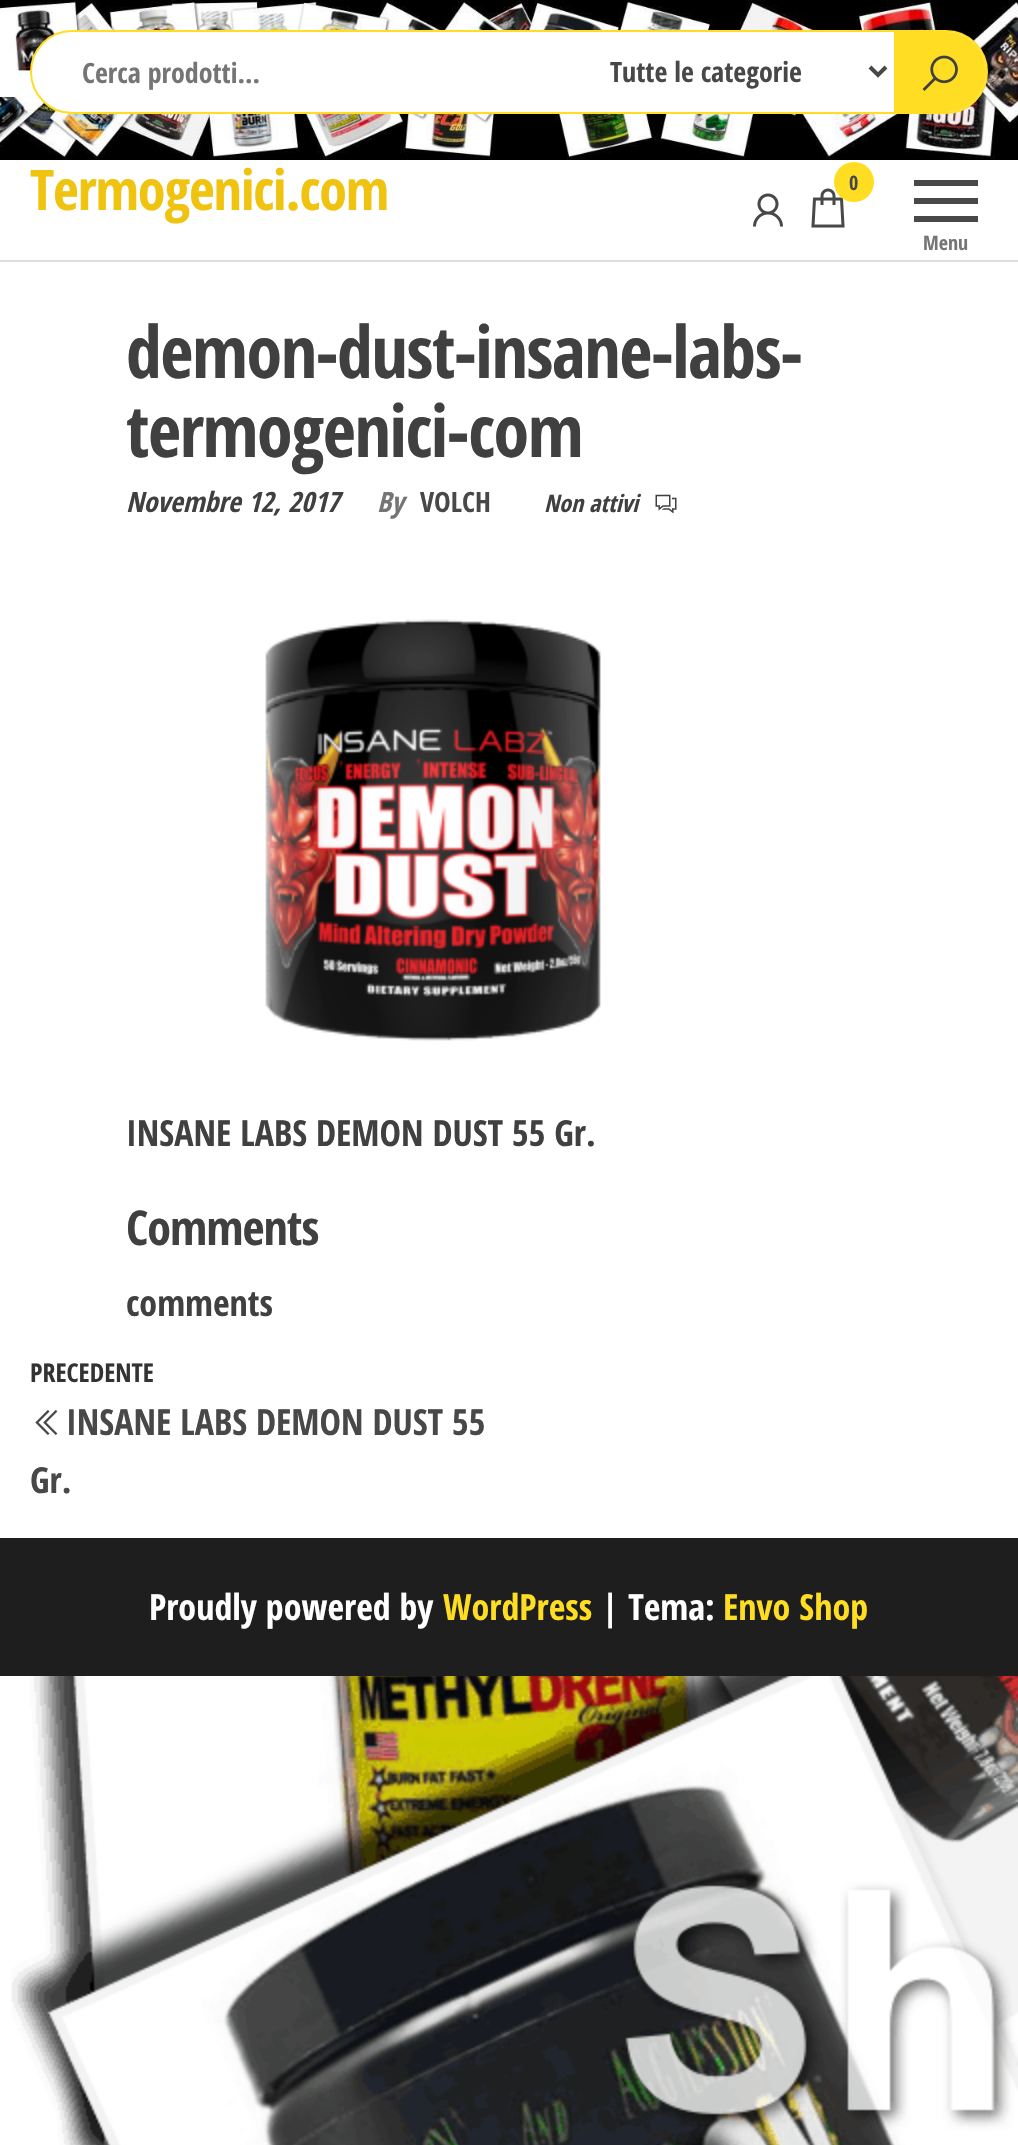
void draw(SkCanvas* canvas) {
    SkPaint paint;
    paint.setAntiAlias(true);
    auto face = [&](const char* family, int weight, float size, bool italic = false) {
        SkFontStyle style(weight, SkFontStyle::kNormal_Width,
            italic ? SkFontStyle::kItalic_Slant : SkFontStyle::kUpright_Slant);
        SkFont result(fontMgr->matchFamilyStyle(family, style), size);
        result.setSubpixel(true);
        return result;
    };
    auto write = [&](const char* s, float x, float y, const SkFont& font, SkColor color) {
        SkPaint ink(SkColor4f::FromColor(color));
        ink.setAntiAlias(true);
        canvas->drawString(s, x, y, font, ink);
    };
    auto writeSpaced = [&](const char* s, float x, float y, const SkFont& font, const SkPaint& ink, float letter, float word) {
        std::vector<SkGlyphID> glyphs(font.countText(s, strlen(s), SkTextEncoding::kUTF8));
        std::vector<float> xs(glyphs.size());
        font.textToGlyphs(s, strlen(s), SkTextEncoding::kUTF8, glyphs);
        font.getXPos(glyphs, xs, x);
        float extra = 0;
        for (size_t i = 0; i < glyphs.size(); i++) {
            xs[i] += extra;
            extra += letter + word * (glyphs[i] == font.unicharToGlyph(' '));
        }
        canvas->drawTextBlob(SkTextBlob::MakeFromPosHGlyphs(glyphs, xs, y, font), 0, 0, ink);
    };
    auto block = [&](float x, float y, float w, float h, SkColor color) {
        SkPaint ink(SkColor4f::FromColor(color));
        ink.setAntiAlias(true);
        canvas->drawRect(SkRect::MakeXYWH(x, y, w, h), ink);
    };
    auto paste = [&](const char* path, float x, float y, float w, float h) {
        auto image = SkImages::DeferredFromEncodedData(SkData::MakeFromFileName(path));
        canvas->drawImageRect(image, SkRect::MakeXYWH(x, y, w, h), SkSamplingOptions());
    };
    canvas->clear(SK_ColorWHITE);
    paste("pic1.png", 11, 1676, 1007, 469);
    paste("pic2.png", 0, 0, 1018, 160);
    paint.setColor(SK_ColorWHITE);
    canvas->drawRoundRect(SkRect::MakeXYWH(31, 31, 956, 82), 41, 41, paint);
    paint.setStyle(SkPaint::kStroke_Style);
    paint.setStrokeWidth(2);
    paint.setColor(SkColorSetRGB(255, 221, 34));
    canvas->drawRoundRect(SkRect::MakeXYWH(31, 31, 956, 82), 41, 41, paint);
    auto kFont1 = face("Open Sans Condensed", 700, 28);
    write("Cerca prodotti...", 82, 83, kFont1, SkColorSetRGB(117, 117, 117));
    paint.setStrokeWidth(4);
    paint.setColor(SkColorSetRGB(72, 72, 72));
    canvas->drawPath(SkPathBuilder().moveTo(870, 67).lineTo(878, 75).lineTo(886, 67).detach(), paint);
    write("Tutte le categorie", 610, 82, kFont1, SkColorSetRGB(72, 72, 72));
    paint.setStyle(SkPaint::kFill_Style);
    paint.setColor(SkColorSetRGB(255, 221, 34));
    canvas->drawPath(SkPathBuilder().moveTo(894, 32).lineTo(946, 32).cubicTo(968, 32, 986, 50, 986, 72).cubicTo(986, 94, 968, 112, 946, 112).lineTo(894, 112).close().detach(), paint);
    paste("pic3.png", 922, 55, 36, 36);
    block(0, 260, 1018, 2, SkColorSetRGB(221, 221, 221));
    auto kFont2 = face("Open Sans Condensed", 700, 56);
    paint.setColor(SkColorSetRGB(239, 195, 16));
    writeSpaced("Termogenici.com", 30, 210, kFont2, paint, -1.1f, 0);
    paste("pic4.png", 753, 193, 30, 34);
    paste("pic5.png", 811, 188, 34, 40);
    paint.setColor(SkColorSetRGB(255, 221, 34));
    canvas->drawCircle(854, 182, 20, paint);
    auto kFont3 = face("Open Sans Condensed", 700, 20);
    write("0", 849, 190, kFont3, SkColorSetRGB(72, 72, 72));
    block(914, 180, 64, 6, SkColorSetRGB(72, 72, 72));
    block(914, 198, 64, 6, SkColorSetRGB(72, 72, 72));
    block(914, 216, 64, 6, SkColorSetRGB(72, 72, 72));
    write("Menu", 923, 250, kFont3, SkColorSetRGB(117, 117, 117));
    auto kFont4 = face("Open Sans Condensed", 700, 72);
    paint.setColor(SkColorSetRGB(64, 64, 64));
    writeSpaced("demon-dust-insane-labs-", 126, 378, kFont4, paint, -1.4f, 0);
    writeSpaced("termogenici-com", 126, 457, kFont4, paint, -1.4f, 0);
    auto kFont5 = face("Open Sans Condensed", 700, 28, true);
    write("Novembre 12, 2017", 126, 512, kFont5, SkColorSetRGB(64, 64, 64));
    write("By", 377, 512, kFont5, SkColorSetRGB(117, 117, 117));
    write("VOLCH", 420, 512, kFont1, SkColorSetRGB(72, 72, 72));
    auto kFont6 = face("Open Sans Condensed", 700, 24, true);
    write("Non attivi", 544, 512, kFont6, SkColorSetRGB(64, 64, 64));
    paste("pic6.png", 655, 494, 22, 20);
    paste("pic7.png", 265, 619, 336, 422);
    auto kFont7 = face("Open Sans Condensed", 700, 36);
    write("INSANE LABS DEMON DUST 55 Gr.", 126, 1146, kFont7, SkColorSetRGB(64, 64, 64));
    auto kFont8 = face("Open Sans Condensed", 700, 48);
    writeSpaced("Comments", 126, 1245, kFont8, paint, -1, 0);
    write("comments", 126, 1316, kFont7, SkColorSetRGB(64, 64, 64));
    auto kFont9 = face("Open Sans Condensed", 700, 26);
    write("PRECEDENTE", 30, 1382, kFont9, SkColorSetRGB(51, 51, 51));
    paste("pic8.png", 35, 1410, 23, 25);
    write("INSANE LABS DEMON DUST 55", 66, 1435, kFont7, SkColorSetRGB(72, 72, 72));
    write("Gr.", 30, 1493, kFont7, SkColorSetRGB(72, 72, 72));
    block(0, 1538, 1018, 138, SkColorSetRGB(30, 30, 30));
    write("Proudly powered by", 149, 1620, kFont7, SK_ColorWHITE);
    write("WordPress", 443, 1620, kFont7, SkColorSetRGB(255, 221, 34));
    write("| Tema:", 601, 1620, kFont7, SK_ColorWHITE);
    write("Envo Shop", 723, 1620, kFont7, SkColorSetRGB(255, 221, 34));
}
